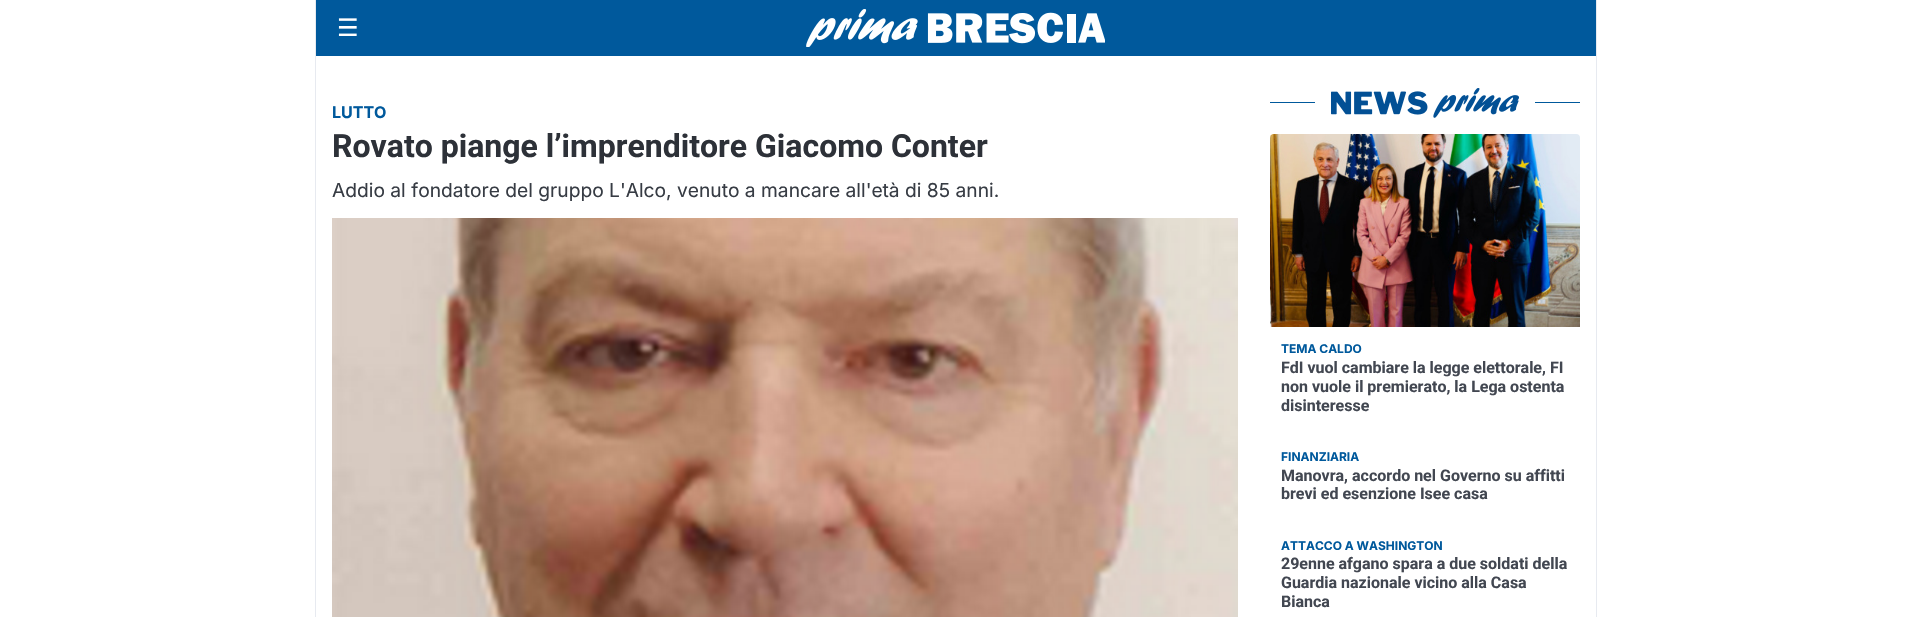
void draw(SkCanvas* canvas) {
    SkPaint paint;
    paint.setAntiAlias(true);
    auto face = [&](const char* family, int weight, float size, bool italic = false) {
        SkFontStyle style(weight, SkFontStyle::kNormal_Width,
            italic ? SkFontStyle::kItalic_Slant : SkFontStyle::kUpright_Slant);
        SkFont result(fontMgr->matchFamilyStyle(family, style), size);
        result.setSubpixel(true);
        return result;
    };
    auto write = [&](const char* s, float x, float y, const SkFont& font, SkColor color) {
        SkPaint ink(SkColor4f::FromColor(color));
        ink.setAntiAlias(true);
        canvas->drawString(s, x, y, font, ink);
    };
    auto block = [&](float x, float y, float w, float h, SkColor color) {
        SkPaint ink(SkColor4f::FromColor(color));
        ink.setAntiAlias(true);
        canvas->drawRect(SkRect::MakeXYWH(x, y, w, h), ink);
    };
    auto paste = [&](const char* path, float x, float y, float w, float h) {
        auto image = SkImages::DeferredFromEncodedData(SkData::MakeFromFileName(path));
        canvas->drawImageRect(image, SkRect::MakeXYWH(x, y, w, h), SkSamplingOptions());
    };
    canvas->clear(SK_ColorWHITE);
    block(1596, 0, 1, 617, SkColorSetRGB(231, 234, 240));
    block(315, 0, 1, 617, SkColorSetRGB(231, 234, 240));
    block(316, 0, 1280, 56, SkColorSetRGB(0, 89, 156));
    auto kFont1 = face("DejaVu Sans", 400, 24);
    write("☰", 337, 36, kFont1, SK_ColorWHITE);
    paste("pic1.png", 806, 9, 299, 38);
    auto kFont2 = face("Inter", 700, 16);
    write("LUTTO", 332, 118, kFont2, SkColorSetRGB(0, 89, 156));
    auto kFont3 = face("Roboto", 700, 32);
    write("Rovato piange l’imprenditore Giacomo Conter", 332, 157, kFont3, SkColorSetRGB(45, 49, 56));
    auto kFont4 = face("Inter", 400, 19.2f);
    write("Addio al fondatore del gruppo L'Alco, venuto a mancare all'età di 85 anni.", 332, 197, kFont4, SkColorSetRGB(55, 60, 68));
    paste("pic2.png", 332, 218, 906, 399);
    block(1270, 102, 310, 1, SkColorSetRGB(0, 89, 156));
    block(1315, 102, 220, 1, SK_ColorWHITE);
    paste("pic3.png", 1331, 88, 188, 30);
    paste("pic4.png", 1270, 134, 310, 193);
    auto kFont5 = face("Inter", 700, 12);
    write("TEMA CALDO", 1281, 353, kFont5, SkColorSetRGB(0, 89, 156));
    auto kFont6 = face("Roboto", 700, 16);
    write("FdI vuol cambiare la legge elettorale, FI", 1281, 373, kFont6, SkColorSetRGB(66, 71, 81));
    write("non vuole il premierato, la Lega ostenta", 1281, 392, kFont6, SkColorSetRGB(66, 71, 81));
    write("disinteresse", 1281, 411, kFont6, SkColorSetRGB(66, 71, 81));
    write("FINANZIARIA", 1281, 461, kFont5, SkColorSetRGB(0, 89, 156));
    write("Manovra, accordo nel Governo su affitti", 1281, 481, kFont6, SkColorSetRGB(66, 71, 81));
    write("brevi ed esenzione Isee casa", 1281, 499, kFont6, SkColorSetRGB(66, 71, 81));
    write("ATTACCO A WASHINGTON", 1281, 550, kFont5, SkColorSetRGB(0, 89, 156));
    write("29enne afgano spara a due soldati della", 1281, 569, kFont6, SkColorSetRGB(66, 71, 81));
    write("Guardia nazionale vicino alla Casa", 1281, 588, kFont6, SkColorSetRGB(66, 71, 81));
    write("Bianca", 1281, 607, kFont6, SkColorSetRGB(66, 71, 81));
}
